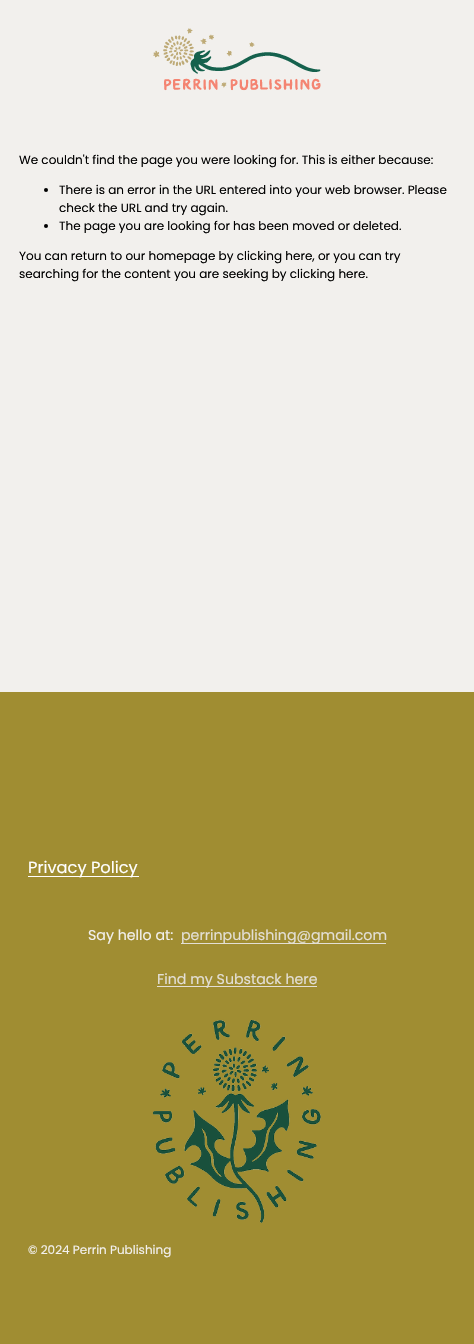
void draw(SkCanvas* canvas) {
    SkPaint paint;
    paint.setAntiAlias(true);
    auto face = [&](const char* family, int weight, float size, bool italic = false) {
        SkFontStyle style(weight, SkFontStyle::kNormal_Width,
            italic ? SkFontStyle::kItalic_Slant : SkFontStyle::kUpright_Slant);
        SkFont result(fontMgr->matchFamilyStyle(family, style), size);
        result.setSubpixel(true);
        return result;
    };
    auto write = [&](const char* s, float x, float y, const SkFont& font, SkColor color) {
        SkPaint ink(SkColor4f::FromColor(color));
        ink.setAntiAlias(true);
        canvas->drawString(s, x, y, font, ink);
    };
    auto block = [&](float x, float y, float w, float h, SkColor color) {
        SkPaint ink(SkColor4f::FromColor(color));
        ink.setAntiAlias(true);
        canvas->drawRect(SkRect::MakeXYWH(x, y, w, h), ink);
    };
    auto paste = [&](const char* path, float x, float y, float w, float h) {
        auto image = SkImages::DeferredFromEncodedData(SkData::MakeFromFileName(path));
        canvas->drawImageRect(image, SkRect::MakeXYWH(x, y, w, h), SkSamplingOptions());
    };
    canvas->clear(SkColorSetRGB(242, 240, 237));
    paste("pic1.png", 153, 28, 168, 63);
    auto kFont1 = face("Poppins", 400, 12);
    write("We couldn't find the page you were looking for. This is either because:", 19, 164, kFont1, SK_ColorBLACK);
    paint.setColor(SK_ColorBLACK);
    canvas->drawCircle(46, 190, 2, paint);
    write("There is an error in the URL entered into your web browser. Please", 59, 194, kFont1, SK_ColorBLACK);
    write("check the URL and try again.", 59, 212, kFont1, SK_ColorBLACK);
    canvas->drawCircle(46, 226, 2, paint);
    write("The page you are looking for has been moved or deleted.", 59, 230, kFont1, SK_ColorBLACK);
    write("You can return to our homepage by clicking here, or you can try", 19, 260, kFont1, SK_ColorBLACK);
    write("searching for the content you are seeking by clicking here.", 19, 278, kFont1, SK_ColorBLACK);
    block(0, 692, 474, 652, SkColorSetRGB(160, 141, 50));
    block(28, 876, 111, 1, SK_ColorWHITE);
    auto kFont2 = face("Poppins", 400, 16.25f);
    write("Privacy Policy", 28, 873, kFont2, SK_ColorWHITE);
    auto kFont3 = face("Poppins", 400, 14.2f);
    write("Say hello at:", 88, 940, kFont3, SkColorSetRGB(242, 240, 237));
    block(181, 943, 205, 1, SkColorSetRGB(227, 223, 213));
    write("perrinpublishing@gmail.com", 181, 940, kFont3, SkColorSetRGB(227, 223, 213));
    block(157, 986, 160, 1, SkColorSetRGB(227, 223, 213));
    write("Find my Substack here", 157, 984, kFont3, SkColorSetRGB(227, 223, 213));
    paste("pic2.png", 152, 1019, 169, 204);
    write("© 2024 Perrin Publishing", 28, 1254, kFont1, SkColorSetRGB(242, 240, 237));
}
